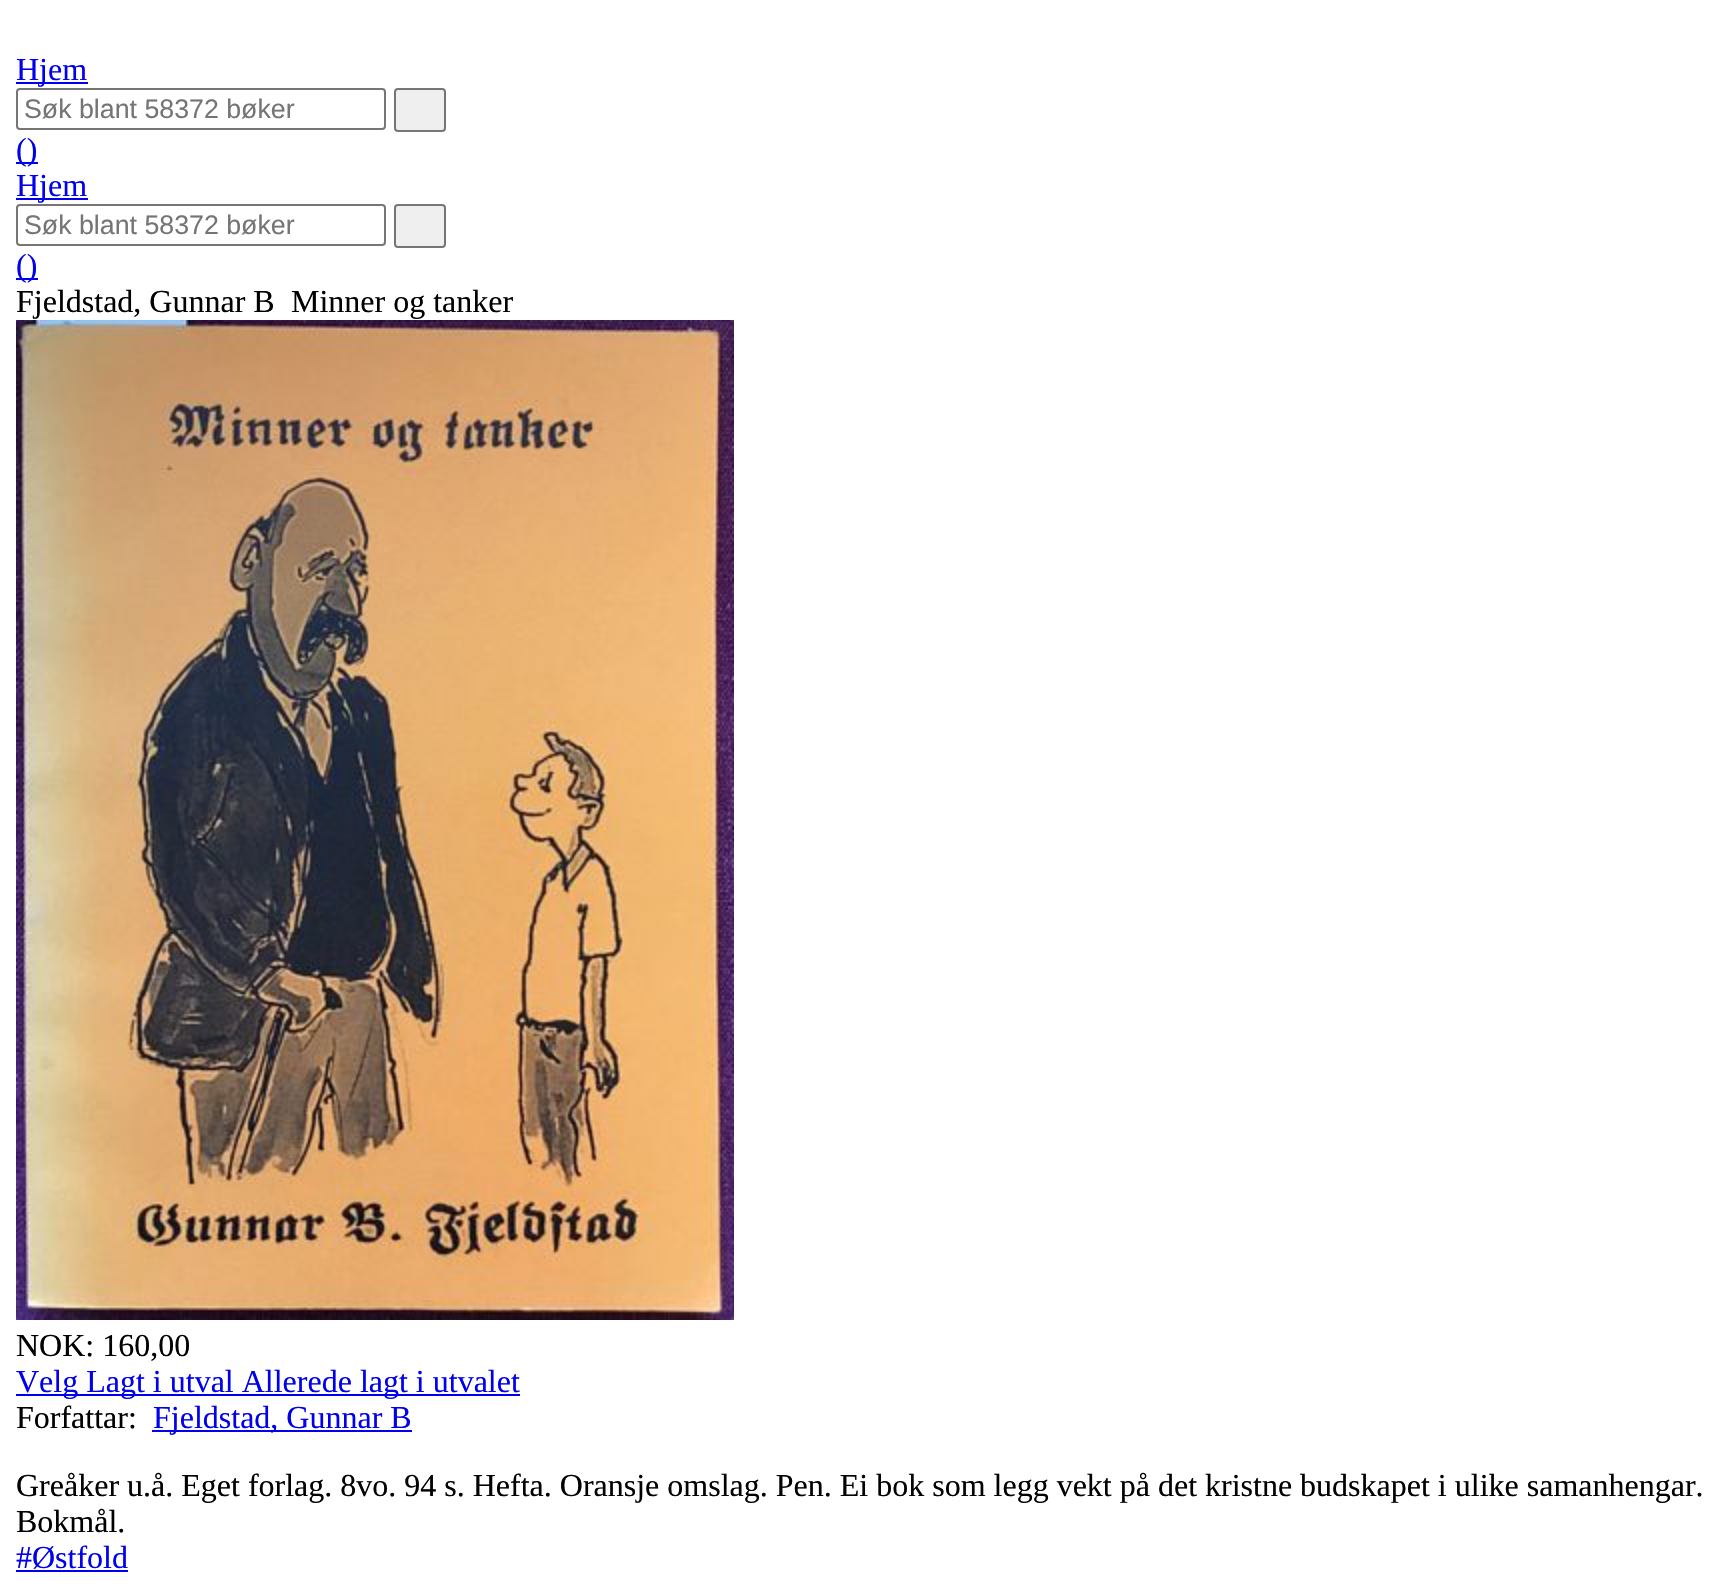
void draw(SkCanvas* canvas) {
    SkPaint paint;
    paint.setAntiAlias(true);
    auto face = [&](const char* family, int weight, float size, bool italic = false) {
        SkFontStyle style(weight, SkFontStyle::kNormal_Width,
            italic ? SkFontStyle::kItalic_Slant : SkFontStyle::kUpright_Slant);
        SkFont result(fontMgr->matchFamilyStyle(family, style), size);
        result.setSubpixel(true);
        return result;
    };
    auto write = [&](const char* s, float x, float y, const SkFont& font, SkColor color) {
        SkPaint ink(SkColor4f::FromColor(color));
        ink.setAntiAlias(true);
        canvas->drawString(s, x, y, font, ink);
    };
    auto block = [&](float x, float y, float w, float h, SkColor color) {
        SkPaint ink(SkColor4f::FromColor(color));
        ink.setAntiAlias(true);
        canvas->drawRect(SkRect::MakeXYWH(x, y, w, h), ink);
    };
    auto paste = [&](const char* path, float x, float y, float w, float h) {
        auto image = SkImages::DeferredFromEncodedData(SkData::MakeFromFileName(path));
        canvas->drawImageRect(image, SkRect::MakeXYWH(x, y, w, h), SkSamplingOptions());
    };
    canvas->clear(SK_ColorWHITE);
    block(16, 82, 72, 2, SkColorSetRGB(0, 0, 238));
    auto kFont1 = face("Liberation Serif", 400, 32);
    write("Hjem", 16, 80, kFont1, SkColorSetRGB(0, 0, 238));
    paint.setStyle(SkPaint::kStroke_Style);
    paint.setStrokeWidth(2);
    paint.setColor(SkColorSetRGB(118, 118, 118));
    canvas->drawRoundRect(SkRect::MakeXYWH(17, 89, 368, 40), 3, 3, paint);
    auto kFont2 = face("Liberation Sans", 400, 26.75f);
    write("Søk blant 58372 bøker", 24, 118, kFont2, SkColorSetRGB(117, 117, 117));
    paint.setStyle(SkPaint::kFill_Style);
    paint.setColor(SkColorSetRGB(239, 239, 239));
    canvas->drawRoundRect(SkRect::MakeXYWH(395, 89, 50, 42), 3, 3, paint);
    paint.setStyle(SkPaint::kStroke_Style);
    paint.setColor(SkColorSetRGB(118, 118, 118));
    canvas->drawRoundRect(SkRect::MakeXYWH(395, 89, 50, 42), 3, 3, paint);
    block(16, 162, 22, 2, SkColorSetRGB(0, 0, 238));
    write("()", 16, 160, kFont1, SkColorSetRGB(0, 0, 238));
    block(16, 198, 72, 2, SkColorSetRGB(0, 0, 238));
    write("Hjem", 16, 196, kFont1, SkColorSetRGB(0, 0, 238));
    canvas->drawRoundRect(SkRect::MakeXYWH(17, 205, 368, 40), 3, 3, paint);
    write("Søk blant 58372 bøker", 24, 234, kFont2, SkColorSetRGB(117, 117, 117));
    paint.setStyle(SkPaint::kFill_Style);
    paint.setColor(SkColorSetRGB(239, 239, 239));
    canvas->drawRoundRect(SkRect::MakeXYWH(395, 205, 50, 42), 3, 3, paint);
    paint.setStyle(SkPaint::kStroke_Style);
    paint.setColor(SkColorSetRGB(118, 118, 118));
    canvas->drawRoundRect(SkRect::MakeXYWH(395, 205, 50, 42), 3, 3, paint);
    block(16, 278, 22, 2, SkColorSetRGB(0, 0, 238));
    write("()", 16, 276, kFont1, SkColorSetRGB(0, 0, 238));
    write("Fjeldstad, Gunnar B", 16, 312, kFont1, SK_ColorBLACK);
    write("Minner og tanker", 291, 312, kFont1, SK_ColorBLACK);
    paste("pic1.png", 16, 320, 718, 1000);
    write("NOK: 160,00", 16, 1356, kFont1, SK_ColorBLACK);
    block(16, 1394, 504, 2, SkColorSetRGB(0, 0, 238));
    write("Velg Lagt i utval Allerede lagt i utvalet", 16, 1392, kFont1, SkColorSetRGB(0, 0, 238));
    write("Forfattar:", 16, 1428, kFont1, SK_ColorBLACK);
    block(152, 1430, 260, 2, SkColorSetRGB(0, 0, 238));
    write("Fjeldstad, Gunnar B", 153, 1428, kFont1, SkColorSetRGB(0, 0, 238));
    write("Greåker u.å. Eget forlag. 8vo. 94 s. Hefta. Oransje omslag. Pen. Ei bok som legg vekt på det kristne budskapet i ulike samanhengar.", 16, 1496, kFont1, SK_ColorBLACK);
    write("Bokmål.", 16, 1532, kFont1, SK_ColorBLACK);
    write("#Østfold", 16, 1568, kFont1, SkColorSetRGB(0, 0, 238));
    block(16, 1570, 112, 2, SkColorSetRGB(0, 0, 238));
}
